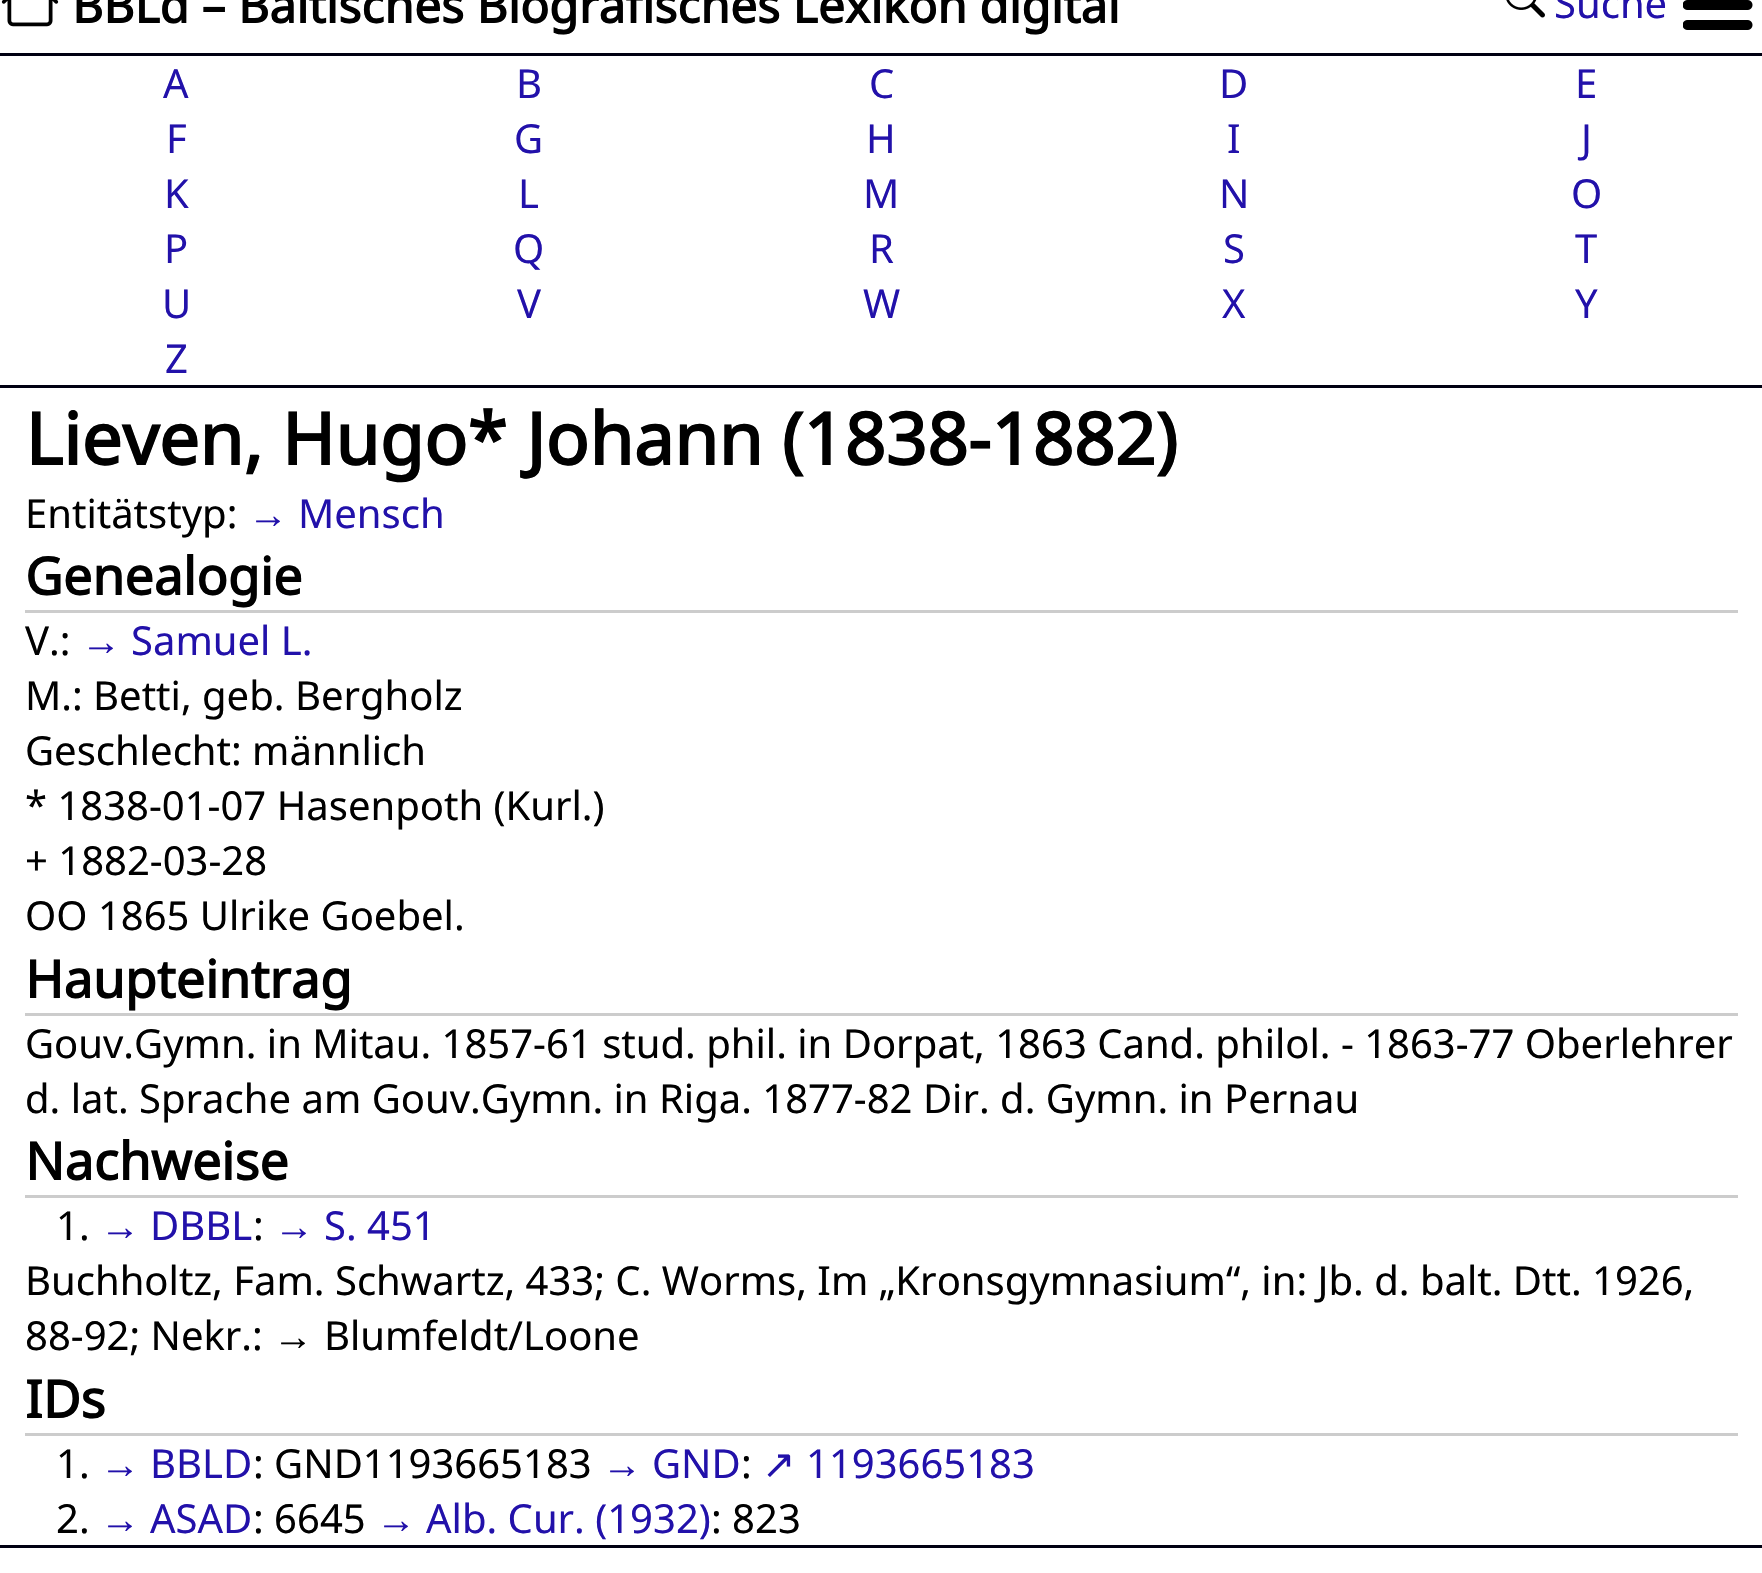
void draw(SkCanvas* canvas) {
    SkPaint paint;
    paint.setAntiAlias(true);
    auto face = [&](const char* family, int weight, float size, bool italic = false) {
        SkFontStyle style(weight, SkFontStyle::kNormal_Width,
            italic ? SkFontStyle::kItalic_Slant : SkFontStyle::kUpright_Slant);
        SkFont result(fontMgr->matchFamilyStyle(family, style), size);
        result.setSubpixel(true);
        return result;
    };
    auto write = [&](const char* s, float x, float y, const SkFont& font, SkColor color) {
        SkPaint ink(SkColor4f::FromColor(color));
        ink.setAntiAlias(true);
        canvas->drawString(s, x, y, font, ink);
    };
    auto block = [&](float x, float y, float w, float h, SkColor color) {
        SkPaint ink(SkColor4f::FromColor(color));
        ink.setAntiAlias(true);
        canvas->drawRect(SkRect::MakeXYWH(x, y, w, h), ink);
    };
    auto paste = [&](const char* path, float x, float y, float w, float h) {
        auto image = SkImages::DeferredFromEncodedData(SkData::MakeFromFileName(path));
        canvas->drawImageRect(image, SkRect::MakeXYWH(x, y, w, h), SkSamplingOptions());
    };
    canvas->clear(SK_ColorWHITE);
    paste("pic1.png", 1, 0, 58, 27);
    auto kFont1 = face("Noto Sans", 700, 48);
    write("BBLd – Baltisches Biografisches Lexikon digital", 72, 23, kFont1, SK_ColorBLACK);
    paste("pic2.png", 1506, 0, 39, 18);
    auto kFont2 = face("Noto Sans", 400, 40);
    write("Suche", 1554, 18, kFont2, SkColorSetRGB(34, 17, 170));
    paste("pic3.png", 1683, 0, 70, 30);
    block(0, 53, 1762, 3, SkColorSetRGB(0, 0, 17));
    block(0, 385, 1762, 3, SkColorSetRGB(0, 0, 17));
    write("A", 163, 98, kFont2, SkColorSetRGB(34, 17, 170));
    write("B", 516, 98, kFont2, SkColorSetRGB(34, 17, 170));
    write("C", 869, 98, kFont2, SkColorSetRGB(34, 17, 170));
    write("D", 1219, 98, kFont2, SkColorSetRGB(34, 17, 170));
    write("E", 1575, 98, kFont2, SkColorSetRGB(34, 17, 170));
    write("F", 166, 153, kFont2, SkColorSetRGB(34, 17, 170));
    write("G", 514, 153, kFont2, SkColorSetRGB(34, 17, 170));
    write("H", 866, 153, kFont2, SkColorSetRGB(34, 17, 170));
    write("I", 1227, 153, kFont2, SkColorSetRGB(34, 17, 170));
    write("J", 1581, 153, kFont2, SkColorSetRGB(34, 17, 170));
    write("K", 164, 208, kFont2, SkColorSetRGB(34, 17, 170));
    write("L", 518, 208, kFont2, SkColorSetRGB(34, 17, 170));
    write("M", 863, 208, kFont2, SkColorSetRGB(34, 17, 170));
    write("N", 1219, 208, kFont2, SkColorSetRGB(34, 17, 170));
    write("O", 1571, 208, kFont2, SkColorSetRGB(34, 17, 170));
    write("P", 164, 263, kFont2, SkColorSetRGB(34, 17, 170));
    write("Q", 513, 263, kFont2, SkColorSetRGB(34, 17, 170));
    write("R", 869, 263, kFont2, SkColorSetRGB(34, 17, 170));
    write("S", 1223, 263, kFont2, SkColorSetRGB(34, 17, 170));
    write("T", 1575, 263, kFont2, SkColorSetRGB(34, 17, 170));
    write("U", 162, 318, kFont2, SkColorSetRGB(34, 17, 170));
    write("V", 517, 318, kFont2, SkColorSetRGB(34, 17, 170));
    write("W", 863, 318, kFont2, SkColorSetRGB(34, 17, 170));
    write("X", 1222, 318, kFont2, SkColorSetRGB(34, 17, 170));
    write("Y", 1575, 318, kFont2, SkColorSetRGB(34, 17, 170));
    write("Z", 165, 373, kFont2, SkColorSetRGB(34, 17, 170));
    auto kFont3 = face("Noto Sans", 700, 72);
    write("Lieven, Hugo* Johann (1838-1882)", 25, 465, kFont3, SK_ColorBLACK);
    write("Entitätstyp:", 25, 528, kFont2, SK_ColorBLACK);
    auto kFont4 = face("Liberation Serif", 400, 40);
    write("→", 248, 528, kFont4, SkColorSetRGB(34, 17, 170));
    write("Mensch", 298, 528, kFont2, SkColorSetRGB(34, 17, 170));
    block(25, 610, 1713, 3, SkColorSetRGB(204, 204, 204));
    auto kFont5 = face("Noto Sans", 700, 52);
    write("Genealogie", 25, 595, kFont5, SK_ColorBLACK);
    write("V.:", 25, 655, kFont2, SK_ColorBLACK);
    write("→", 81, 655, kFont4, SkColorSetRGB(34, 17, 170));
    write("Samuel L.", 131, 655, kFont2, SkColorSetRGB(34, 17, 170));
    write("M.: Betti, geb. Bergholz", 25, 710, kFont2, SK_ColorBLACK);
    write("Geschlecht: männlich", 25, 765, kFont2, SK_ColorBLACK);
    write("* 1838-01-07 Hasenpoth (Kurl.)", 25, 820, kFont2, SK_ColorBLACK);
    write("+ 1882-03-28", 25, 875, kFont2, SK_ColorBLACK);
    write("OO 1865 Ulrike Goebel.", 25, 930, kFont2, SK_ColorBLACK);
    block(25, 1013, 1713, 3, SkColorSetRGB(204, 204, 204));
    write("Haupteintrag", 25, 998, kFont5, SK_ColorBLACK);
    write("Gouv.Gymn. in Mitau. 1857-61 stud. phil. in Dorpat, 1863 Cand. philol. - 1863-77 Oberlehrer", 25, 1058, kFont2, SK_ColorBLACK);
    write("d. lat. Sprache am Gouv.Gymn. in Riga. 1877-82 Dir. d. Gymn. in Pernau", 25, 1113, kFont2, SK_ColorBLACK);
    block(25, 1195, 1713, 3, SkColorSetRGB(204, 204, 204));
    write("Nachweise", 25, 1180, kFont5, SK_ColorBLACK);
    write("1.", 56, 1240, kFont2, SK_ColorBLACK);
    write("→", 100, 1240, kFont4, SkColorSetRGB(34, 17, 170));
    write("DBBL", 150, 1240, kFont2, SkColorSetRGB(34, 17, 170));
    write(":", 253, 1240, kFont2, SK_ColorBLACK);
    write("→", 274, 1240, kFont4, SkColorSetRGB(34, 17, 170));
    write("S. 451", 324, 1240, kFont2, SkColorSetRGB(34, 17, 170));
    write("Buchholtz, Fam. Schwartz, 433; C. Worms, Im „Kronsgymnasium“, in: Jb. d. balt. Dtt. 1926,", 25, 1295, kFont2, SK_ColorBLACK);
    write("88-92; Nekr.:", 25, 1350, kFont2, SK_ColorBLACK);
    write("→", 273, 1350, kFont4, SK_ColorBLACK);
    write("Blumfeldt/Loone", 324, 1350, kFont2, SK_ColorBLACK);
    block(25, 1433, 1713, 3, SkColorSetRGB(204, 204, 204));
    write("IDs", 25, 1418, kFont5, SK_ColorBLACK);
    write("1.", 56, 1478, kFont2, SK_ColorBLACK);
    write("→", 100, 1478, kFont4, SkColorSetRGB(34, 17, 170));
    write("BBLD", 150, 1478, kFont2, SkColorSetRGB(34, 17, 170));
    write(": GND1193665183", 253, 1478, kFont2, SK_ColorBLACK);
    write("→", 602, 1478, kFont4, SkColorSetRGB(34, 17, 170));
    write("GND", 652, 1478, kFont2, SkColorSetRGB(34, 17, 170));
    write(":", 741, 1478, kFont2, SK_ColorBLACK);
    auto kFont6 = face("DejaVu Sans", 400, 40);
    write("↗", 762, 1478, kFont6, SkColorSetRGB(34, 17, 170));
    write("1193665183", 806, 1478, kFont2, SkColorSetRGB(34, 17, 170));
    write("2.", 56, 1533, kFont2, SK_ColorBLACK);
    write("→", 100, 1533, kFont4, SkColorSetRGB(34, 17, 170));
    write("ASAD", 150, 1533, kFont2, SkColorSetRGB(34, 17, 170));
    write(": 6645", 253, 1533, kFont2, SK_ColorBLACK);
    write("→", 376, 1533, kFont4, SkColorSetRGB(34, 17, 170));
    write("Alb. Cur. (1932)", 426, 1533, kFont2, SkColorSetRGB(34, 17, 170));
    write(": 823", 711, 1533, kFont2, SK_ColorBLACK);
    block(0, 1545, 1762, 3, SkColorSetRGB(0, 0, 17));
}
